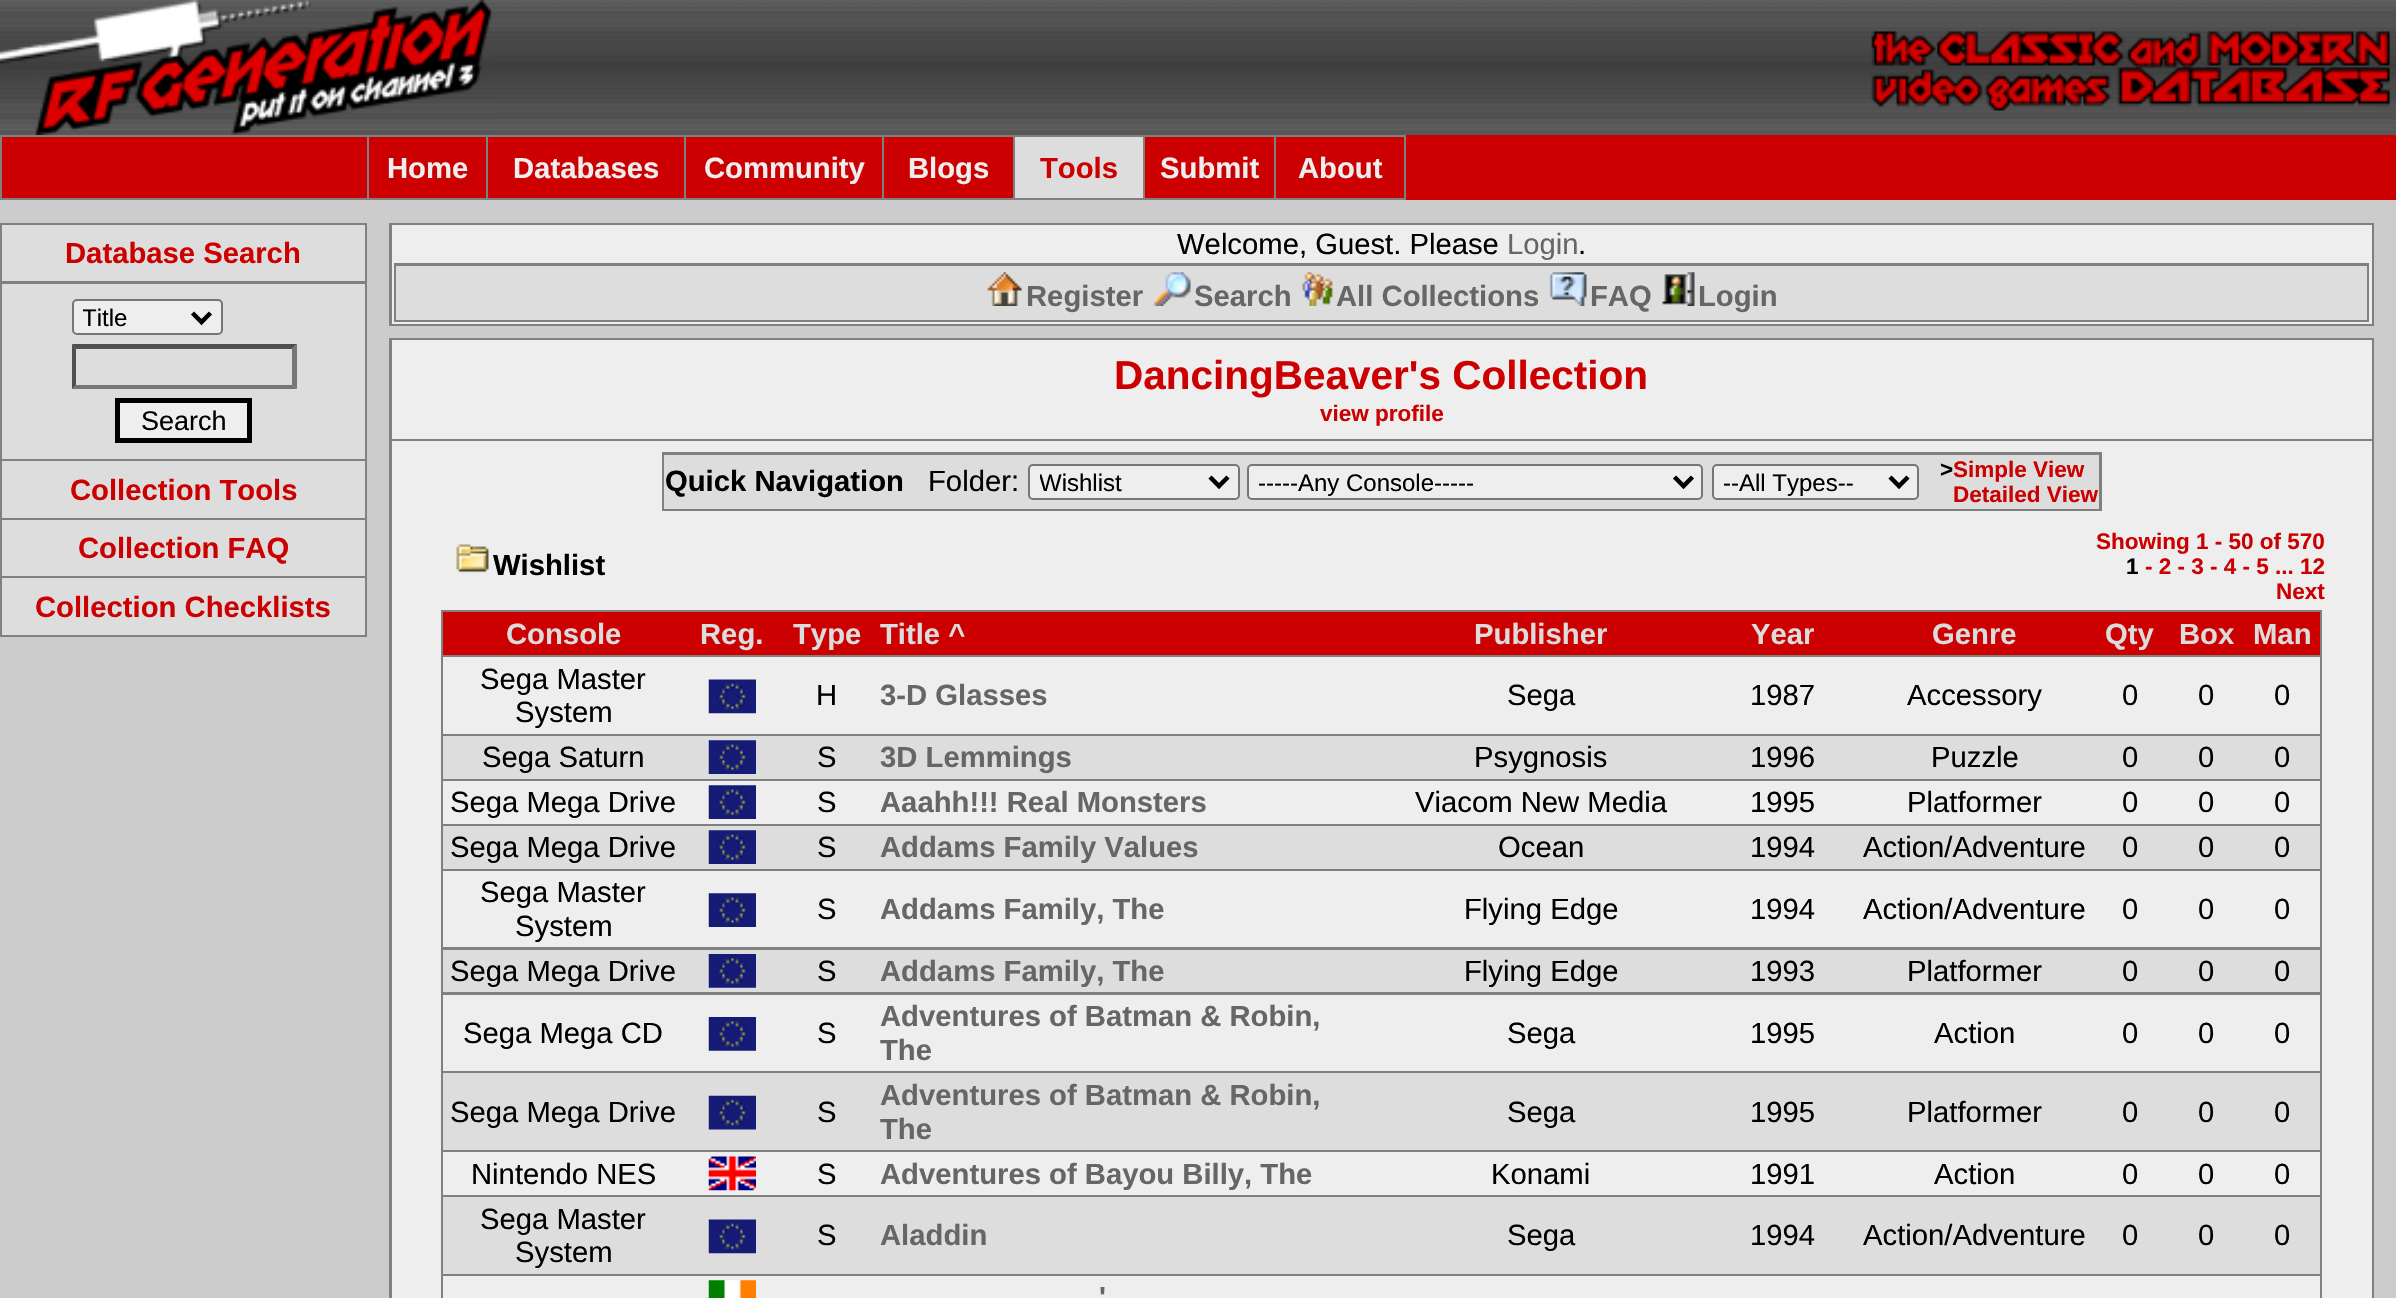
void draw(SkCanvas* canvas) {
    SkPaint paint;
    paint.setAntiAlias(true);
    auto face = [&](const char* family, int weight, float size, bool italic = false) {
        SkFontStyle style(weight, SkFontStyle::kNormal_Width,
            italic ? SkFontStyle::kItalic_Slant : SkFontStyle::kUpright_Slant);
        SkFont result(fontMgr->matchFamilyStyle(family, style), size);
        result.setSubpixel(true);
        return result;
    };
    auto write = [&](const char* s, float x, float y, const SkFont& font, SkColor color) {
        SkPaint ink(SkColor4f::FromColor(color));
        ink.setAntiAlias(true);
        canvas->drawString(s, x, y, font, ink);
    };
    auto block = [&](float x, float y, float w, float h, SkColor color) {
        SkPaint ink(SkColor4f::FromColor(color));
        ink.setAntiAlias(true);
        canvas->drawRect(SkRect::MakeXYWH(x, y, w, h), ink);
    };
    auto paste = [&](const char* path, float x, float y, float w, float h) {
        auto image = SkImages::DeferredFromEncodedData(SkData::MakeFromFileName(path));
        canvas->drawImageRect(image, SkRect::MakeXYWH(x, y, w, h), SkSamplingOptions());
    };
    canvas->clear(SkColorSetRGB(204, 204, 204));
    paste("pic1.png", 493, 0, 1903, 135);
    paste("pic2.png", 0, 0, 493, 135);
    paste("pic3.png", 1871, 31, 520, 80);
    block(1406, 135, 990, 65, SkColorSetRGB(204, 0, 0));
    block(0, 135, 1406, 65, SkColorSetRGB(128, 128, 128));
    block(2, 137, 365, 61, SkColorSetRGB(204, 0, 0));
    block(369, 137, 117, 61, SkColorSetRGB(204, 0, 0));
    auto kFont1 = face("Liberation Sans", 700, 29.25f);
    write("Home", 387, 178, kFont1, SkColorSetRGB(238, 238, 238));
    block(488, 137, 196, 61, SkColorSetRGB(204, 0, 0));
    write("Databases", 513, 178, kFont1, SkColorSetRGB(238, 238, 238));
    block(686, 137, 196, 61, SkColorSetRGB(204, 0, 0));
    write("Community", 704, 178, kFont1, SkColorSetRGB(238, 238, 238));
    block(884, 137, 129, 61, SkColorSetRGB(204, 0, 0));
    write("Blogs", 908, 178, kFont1, SkColorSetRGB(238, 238, 238));
    block(1015, 137, 128, 61, SkColorSetRGB(221, 221, 221));
    write("Tools", 1040, 178, kFont1, SkColorSetRGB(204, 0, 0));
    block(1145, 137, 129, 61, SkColorSetRGB(204, 0, 0));
    write("Submit", 1160, 178, kFont1, SkColorSetRGB(238, 238, 238));
    block(1276, 137, 128, 61, SkColorSetRGB(204, 0, 0));
    write("About", 1298, 178, kFont1, SkColorSetRGB(238, 238, 238));
    block(0, 223, 367, 414, SkColorSetRGB(128, 128, 128));
    block(2, 225, 363, 56, SkColorSetRGB(221, 221, 221));
    write("Database Search", 65, 263, kFont1, SkColorSetRGB(204, 0, 0));
    block(2, 284, 363, 175, SkColorSetRGB(221, 221, 221));
    paint.setColor(SkColorSetRGB(238, 238, 238));
    canvas->drawRoundRect(SkRect::MakeXYWH(73, 300, 149, 34), 4, 4, paint);
    paint.setStyle(SkPaint::kStroke_Style);
    paint.setStrokeWidth(2);
    paint.setColor(SkColorSetRGB(118, 118, 118));
    canvas->drawRoundRect(SkRect::MakeXYWH(73, 300, 149, 34), 4, 4, paint);
    paint.setStrokeWidth(4.5f);
    paint.setColor(SK_ColorBLACK);
    canvas->drawPath(SkPathBuilder().moveTo(192.5f, 313).lineTo(201.5f, 322).lineTo(210.5f, 313).detach(), paint);
    canvas->save();
    canvas->clipRect(SkRect::MakeXYWH(83, 302, 102, 31));
    auto kFont2 = face("Liberation Sans", 400, 24);
    write("Title", 82, 326, kFont2, SK_ColorBLACK);
    canvas->restore();
    paint.setStyle(SkPaint::kFill_Style);
    paint.setColor(SkColorSetRGB(79, 79, 79));
    canvas->drawPath(SkPathBuilder().moveTo(72, 344).lineTo(297, 344).lineTo(292, 349).lineTo(76, 349).close().detach(), paint);
    paint.setColor(SkColorSetRGB(118, 118, 118));
    canvas->drawPath(SkPathBuilder().moveTo(297, 344).lineTo(297, 389).lineTo(292, 385).lineTo(292, 349).close().detach(), paint);
    canvas->drawPath(SkPathBuilder().moveTo(297, 389).lineTo(72, 389).lineTo(76, 385).lineTo(292, 385).close().detach(), paint);
    paint.setColor(SkColorSetRGB(79, 79, 79));
    canvas->drawPath(SkPathBuilder().moveTo(72, 389).lineTo(72, 344).lineTo(76, 349).lineTo(76, 385).close().detach(), paint);
    paint.setColor(SkColorSetRGB(238, 238, 238));
    canvas->drawRect(SkRect::MakeXYWH(117.5f, 400.5f, 132, 40), paint);
    paint.setStyle(SkPaint::kStroke_Style);
    paint.setStrokeWidth(5);
    paint.setColor(SK_ColorBLACK);
    canvas->drawRect(SkRect::MakeXYWH(117.5f, 400.5f, 132, 40), paint);
    auto kFont3 = face("Liberation Sans", 400, 27);
    write("Search", 141, 430, kFont3, SK_ColorBLACK);
    block(2, 461, 363, 57, SkColorSetRGB(221, 221, 221));
    write("Collection Tools", 70, 500, kFont1, SkColorSetRGB(204, 0, 0));
    block(2, 520, 363, 56, SkColorSetRGB(221, 221, 221));
    write("Collection FAQ", 78, 558, kFont1, SkColorSetRGB(204, 0, 0));
    block(2, 578, 363, 57, SkColorSetRGB(221, 221, 221));
    write("Collection Checklists", 35, 617, kFont1, SkColorSetRGB(204, 0, 0));
    block(389, 223, 1985, 103, SkColorSetRGB(128, 128, 128));
    block(392, 225, 1980, 99, SkColorSetRGB(238, 238, 238));
    auto kFont4 = face("Liberation Sans", 400, 29.25f);
    write("Welcome, Guest. Please", 1177, 254, kFont4, SK_ColorBLACK);
    write("Login", 1507, 254, kFont4, SkColorSetRGB(102, 102, 102));
    write(".", 1578, 254, kFont4, SK_ColorBLACK);
    block(394, 263, 1975, 59, SkColorSetRGB(128, 128, 128));
    block(396, 266, 1971, 54, SkColorSetRGB(221, 221, 221));
    paste("pic4.png", 987, 272, 36, 34);
    write("Register", 1026, 306, kFont1, SkColorSetRGB(102, 102, 102));
    paste("pic5.png", 1153, 272, 38, 34);
    write("Search", 1194, 306, kFont1, SkColorSetRGB(102, 102, 102));
    paste("pic6.png", 1302, 272, 31, 34);
    write("All Collections", 1336, 306, kFont1, SkColorSetRGB(102, 102, 102));
    paste("pic7.png", 1549, 272, 38, 34);
    write("FAQ", 1590, 306, kFont1, SkColorSetRGB(102, 102, 102));
    paste("pic8.png", 1662, 272, 33, 34);
    write("Login", 1698, 306, kFont1, SkColorSetRGB(102, 102, 102));
    block(389, 338, 1985, 960, SkColorSetRGB(128, 128, 128));
    block(392, 340, 1980, 99, SkColorSetRGB(238, 238, 238));
    auto kFont5 = face("Liberation Sans", 700, 40.5f);
    write("DancingBeaver's Collection", 1114, 389, kFont5, SkColorSetRGB(204, 0, 0));
    auto kFont6 = face("Liberation Sans", 700, 22.5f);
    write("view profile", 1320, 421, kFont6, SkColorSetRGB(204, 0, 0));
    block(392, 441, 1980, 857, SkColorSetRGB(238, 238, 238));
    block(662, 452, 1440, 59, SkColorSetRGB(128, 128, 128));
    block(664, 455, 1435, 54, SkColorSetRGB(221, 221, 221));
    write("Quick Navigation", 665, 491, kFont1, SK_ColorBLACK);
    write("Folder:", 928, 491, kFont4, SK_ColorBLACK);
    paint.setStyle(SkPaint::kFill_Style);
    paint.setColor(SkColorSetRGB(238, 238, 238));
    canvas->drawRoundRect(SkRect::MakeXYWH(1029, 465, 210, 34), 4, 4, paint);
    paint.setStyle(SkPaint::kStroke_Style);
    paint.setStrokeWidth(2);
    paint.setColor(SkColorSetRGB(118, 118, 118));
    canvas->drawRoundRect(SkRect::MakeXYWH(1029, 465, 210, 34), 4, 4, paint);
    paint.setStrokeWidth(4.5f);
    paint.setColor(SK_ColorBLACK);
    canvas->drawPath(SkPathBuilder().moveTo(1210, 477).lineTo(1219, 486).lineTo(1228, 477).detach(), paint);
    canvas->save();
    canvas->clipRect(SkRect::MakeXYWH(1040, 466, 162, 31));
    write("Wishlist", 1039, 491, kFont2, SK_ColorBLACK);
    canvas->restore();
    paint.setStyle(SkPaint::kFill_Style);
    paint.setColor(SkColorSetRGB(238, 238, 238));
    canvas->drawRoundRect(SkRect::MakeXYWH(1248, 465, 454, 34), 4, 4, paint);
    paint.setStyle(SkPaint::kStroke_Style);
    paint.setStrokeWidth(2);
    paint.setColor(SkColorSetRGB(118, 118, 118));
    canvas->drawRoundRect(SkRect::MakeXYWH(1248, 465, 454, 34), 4, 4, paint);
    paint.setStrokeWidth(4.5f);
    paint.setColor(SK_ColorBLACK);
    canvas->drawPath(SkPathBuilder().moveTo(1674.5f, 477).lineTo(1683.5f, 486).lineTo(1692.5f, 477).detach(), paint);
    write("-----Any Console-----", 1258, 491, kFont2, SK_ColorBLACK);
    paint.setStyle(SkPaint::kFill_Style);
    paint.setColor(SkColorSetRGB(238, 238, 238));
    canvas->drawRoundRect(SkRect::MakeXYWH(1713, 465, 205, 34), 4, 4, paint);
    paint.setStyle(SkPaint::kStroke_Style);
    paint.setStrokeWidth(2);
    paint.setColor(SkColorSetRGB(118, 118, 118));
    canvas->drawRoundRect(SkRect::MakeXYWH(1713, 465, 205, 34), 4, 4, paint);
    paint.setStrokeWidth(4.5f);
    paint.setColor(SK_ColorBLACK);
    canvas->drawPath(SkPathBuilder().moveTo(1890, 477).lineTo(1899, 486).lineTo(1908, 477).detach(), paint);
    write("--All Types--", 1723, 491, kFont2, SK_ColorBLACK);
    write(">", 1940, 477, kFont6, SK_ColorBLACK);
    write("Simple View", 1953, 477, kFont6, SkColorSetRGB(204, 0, 0));
    write("Detailed View", 1953, 502, kFont6, SkColorSetRGB(204, 0, 0));
    paste("pic9.png", 456, 544, 33, 29);
    write("Wishlist", 493, 575, kFont1, SK_ColorBLACK);
    write("Showing 1 - 50 of 570", 2096, 549, kFont6, SkColorSetRGB(204, 0, 0));
    write("1", 2126, 574, kFont6, SK_ColorBLACK);
    write("- 2 - 3 - 4 - 5 ... 12", 2145, 574, kFont6, SkColorSetRGB(204, 0, 0));
    write("Next", 2276, 599, kFont6, SkColorSetRGB(204, 0, 0));
    block(441, 610, 1881, 688, SkColorSetRGB(128, 128, 128));
    block(443, 612, 1877, 43, SkColorSetRGB(204, 0, 0));
    write("Console", 506, 644, kFont1, SkColorSetRGB(220, 220, 220));
    write("Reg.", 700, 644, kFont1, SkColorSetRGB(220, 220, 220));
    write("Type", 793, 644, kFont1, SkColorSetRGB(220, 220, 220));
    write("Title ^", 880, 644, kFont1, SkColorSetRGB(220, 220, 220));
    write("Publisher", 1474, 644, kFont1, SkColorSetRGB(220, 220, 220));
    write("Year", 1751, 644, kFont1, SkColorSetRGB(220, 220, 220));
    write("Genre", 1932, 644, kFont1, SkColorSetRGB(220, 220, 220));
    write("Qty", 2105, 644, kFont1, SkColorSetRGB(220, 220, 220));
    write("Box", 2179, 644, kFont1, SkColorSetRGB(220, 220, 220));
    write("Man", 2253, 644, kFont1, SkColorSetRGB(220, 220, 220));
    block(443, 657, 1877, 77, SkColorSetRGB(238, 238, 238));
    write("Sega Master", 480, 689, kFont4, SK_ColorBLACK);
    write("System", 515, 722, kFont4, SK_ColorBLACK);
    paste("pic10.png", 708, 679, 48, 35);
    write("H", 816, 705, kFont4, SK_ColorBLACK);
    write("3-D Glasses", 880, 705, kFont1, SkColorSetRGB(102, 102, 102));
    write("Sega", 1507, 705, kFont4, SK_ColorBLACK);
    write("1987", 1750, 705, kFont4, SK_ColorBLACK);
    write("Accessory", 1907, 705, kFont4, SK_ColorBLACK);
    write("0", 2122, 705, kFont4, SK_ColorBLACK);
    write("0", 2198, 705, kFont4, SK_ColorBLACK);
    write("0", 2274, 705, kFont4, SK_ColorBLACK);
    block(443, 736, 1877, 43, SkColorSetRGB(221, 221, 221));
    write("Sega Saturn", 482, 767, kFont4, SK_ColorBLACK);
    paste("pic11.png", 708, 740, 48, 34);
    write("S", 817, 767, kFont4, SK_ColorBLACK);
    write("3D Lemmings", 880, 767, kFont1, SkColorSetRGB(102, 102, 102));
    write("Psygnosis", 1474, 767, kFont4, SK_ColorBLACK);
    write("1996", 1750, 767, kFont4, SK_ColorBLACK);
    write("Puzzle", 1931, 767, kFont4, SK_ColorBLACK);
    write("0", 2122, 767, kFont4, SK_ColorBLACK);
    write("0", 2198, 767, kFont4, SK_ColorBLACK);
    write("0", 2274, 767, kFont4, SK_ColorBLACK);
    block(443, 781, 1877, 43, SkColorSetRGB(238, 238, 238));
    write("Sega Mega Drive", 450, 812, kFont4, SK_ColorBLACK);
    paste("pic12.png", 708, 785, 48, 34);
    write("S", 817, 812, kFont4, SK_ColorBLACK);
    write("Aaahh!!! Real Monsters", 880, 812, kFont1, SkColorSetRGB(102, 102, 102));
    write("Viacom New Media", 1415, 812, kFont4, SK_ColorBLACK);
    write("1995", 1750, 812, kFont4, SK_ColorBLACK);
    write("Platformer", 1907, 812, kFont4, SK_ColorBLACK);
    write("0", 2122, 812, kFont4, SK_ColorBLACK);
    write("0", 2198, 812, kFont4, SK_ColorBLACK);
    write("0", 2274, 812, kFont4, SK_ColorBLACK);
    block(443, 826, 1877, 43, SkColorSetRGB(221, 221, 221));
    write("Sega Mega Drive", 450, 857, kFont4, SK_ColorBLACK);
    paste("pic13.png", 708, 830, 48, 34);
    write("S", 817, 857, kFont4, SK_ColorBLACK);
    write("Addams Family Values", 880, 857, kFont1, SkColorSetRGB(102, 102, 102));
    write("Ocean", 1498, 857, kFont4, SK_ColorBLACK);
    write("1994", 1750, 857, kFont4, SK_ColorBLACK);
    write("Action/Adventure", 1863, 857, kFont4, SK_ColorBLACK);
    write("0", 2122, 857, kFont4, SK_ColorBLACK);
    write("0", 2198, 857, kFont4, SK_ColorBLACK);
    write("0", 2274, 857, kFont4, SK_ColorBLACK);
    block(443, 871, 1877, 76, SkColorSetRGB(238, 238, 238));
    write("Sega Master", 480, 902, kFont4, SK_ColorBLACK);
    write("System", 515, 936, kFont4, SK_ColorBLACK);
    paste("pic12.png", 708, 893, 48, 34);
    write("S", 817, 919, kFont4, SK_ColorBLACK);
    write("Addams Family, The", 880, 919, kFont1, SkColorSetRGB(102, 102, 102));
    write("Flying Edge", 1464, 919, kFont4, SK_ColorBLACK);
    write("1994", 1750, 919, kFont4, SK_ColorBLACK);
    write("Action/Adventure", 1863, 919, kFont4, SK_ColorBLACK);
    write("0", 2122, 919, kFont4, SK_ColorBLACK);
    write("0", 2198, 919, kFont4, SK_ColorBLACK);
    write("0", 2274, 919, kFont4, SK_ColorBLACK);
    block(443, 950, 1877, 42, SkColorSetRGB(221, 221, 221));
    write("Sega Mega Drive", 450, 981, kFont4, SK_ColorBLACK);
    paste("pic14.png", 708, 954, 48, 34);
    write("S", 817, 981, kFont4, SK_ColorBLACK);
    write("Addams Family, The", 880, 981, kFont1, SkColorSetRGB(102, 102, 102));
    write("Flying Edge", 1464, 981, kFont4, SK_ColorBLACK);
    write("1993", 1750, 981, kFont4, SK_ColorBLACK);
    write("Platformer", 1907, 981, kFont4, SK_ColorBLACK);
    write("0", 2122, 981, kFont4, SK_ColorBLACK);
    write("0", 2198, 981, kFont4, SK_ColorBLACK);
    write("0", 2274, 981, kFont4, SK_ColorBLACK);
    block(443, 995, 1877, 76, SkColorSetRGB(238, 238, 238));
    write("Sega Mega CD", 463, 1043, kFont4, SK_ColorBLACK);
    paste("pic15.png", 708, 1017, 48, 34);
    write("S", 817, 1043, kFont4, SK_ColorBLACK);
    write("Adventures of Batman & Robin,", 880, 1026, kFont1, SkColorSetRGB(102, 102, 102));
    write("The", 880, 1060, kFont1, SkColorSetRGB(102, 102, 102));
    write("Sega", 1507, 1043, kFont4, SK_ColorBLACK);
    write("1995", 1750, 1043, kFont4, SK_ColorBLACK);
    write("Action", 1934, 1043, kFont4, SK_ColorBLACK);
    write("0", 2122, 1043, kFont4, SK_ColorBLACK);
    write("0", 2198, 1043, kFont4, SK_ColorBLACK);
    write("0", 2274, 1043, kFont4, SK_ColorBLACK);
    block(443, 1073, 1877, 77, SkColorSetRGB(221, 221, 221));
    write("Sega Mega Drive", 450, 1122, kFont4, SK_ColorBLACK);
    paste("pic16.png", 708, 1095, 48, 35);
    write("S", 817, 1122, kFont4, SK_ColorBLACK);
    write("Adventures of Batman & Robin,", 880, 1105, kFont1, SkColorSetRGB(102, 102, 102));
    write("The", 880, 1139, kFont1, SkColorSetRGB(102, 102, 102));
    write("Sega", 1507, 1122, kFont4, SK_ColorBLACK);
    write("1995", 1750, 1122, kFont4, SK_ColorBLACK);
    write("Platformer", 1907, 1122, kFont4, SK_ColorBLACK);
    write("0", 2122, 1122, kFont4, SK_ColorBLACK);
    write("0", 2198, 1122, kFont4, SK_ColorBLACK);
    write("0", 2274, 1122, kFont4, SK_ColorBLACK);
    block(443, 1152, 1877, 43, SkColorSetRGB(238, 238, 238));
    write("Nintendo NES", 471, 1184, kFont4, SK_ColorBLACK);
    paste("pic17.png", 708, 1156, 48, 35);
    write("S", 817, 1184, kFont4, SK_ColorBLACK);
    write("Adventures of Bayou Billy, The", 880, 1184, kFont1, SkColorSetRGB(102, 102, 102));
    write("Konami", 1491, 1184, kFont4, SK_ColorBLACK);
    write("1991", 1750, 1184, kFont4, SK_ColorBLACK);
    write("Action", 1934, 1184, kFont4, SK_ColorBLACK);
    write("0", 2122, 1184, kFont4, SK_ColorBLACK);
    write("0", 2198, 1184, kFont4, SK_ColorBLACK);
    write("0", 2274, 1184, kFont4, SK_ColorBLACK);
    block(443, 1197, 1877, 77, SkColorSetRGB(221, 221, 221));
    write("Sega Master", 480, 1229, kFont4, SK_ColorBLACK);
    write("System", 515, 1262, kFont4, SK_ColorBLACK);
    paste("pic18.png", 708, 1219, 48, 35);
    write("S", 817, 1245, kFont4, SK_ColorBLACK);
    write("Aladdin", 880, 1245, kFont1, SkColorSetRGB(102, 102, 102));
    write("Sega", 1507, 1245, kFont4, SK_ColorBLACK);
    write("1994", 1750, 1245, kFont4, SK_ColorBLACK);
    write("Action/Adventure", 1863, 1245, kFont4, SK_ColorBLACK);
    write("0", 2122, 1245, kFont4, SK_ColorBLACK);
    write("0", 2198, 1245, kFont4, SK_ColorBLACK);
    write("0", 2274, 1245, kFont4, SK_ColorBLACK);
    block(443, 1276, 1877, 22, SkColorSetRGB(238, 238, 238));
    paste("pic19.png", 708, 1280, 48, 18);
    write("'", 1099, 1307, kFont1, SkColorSetRGB(102, 102, 102));
}
